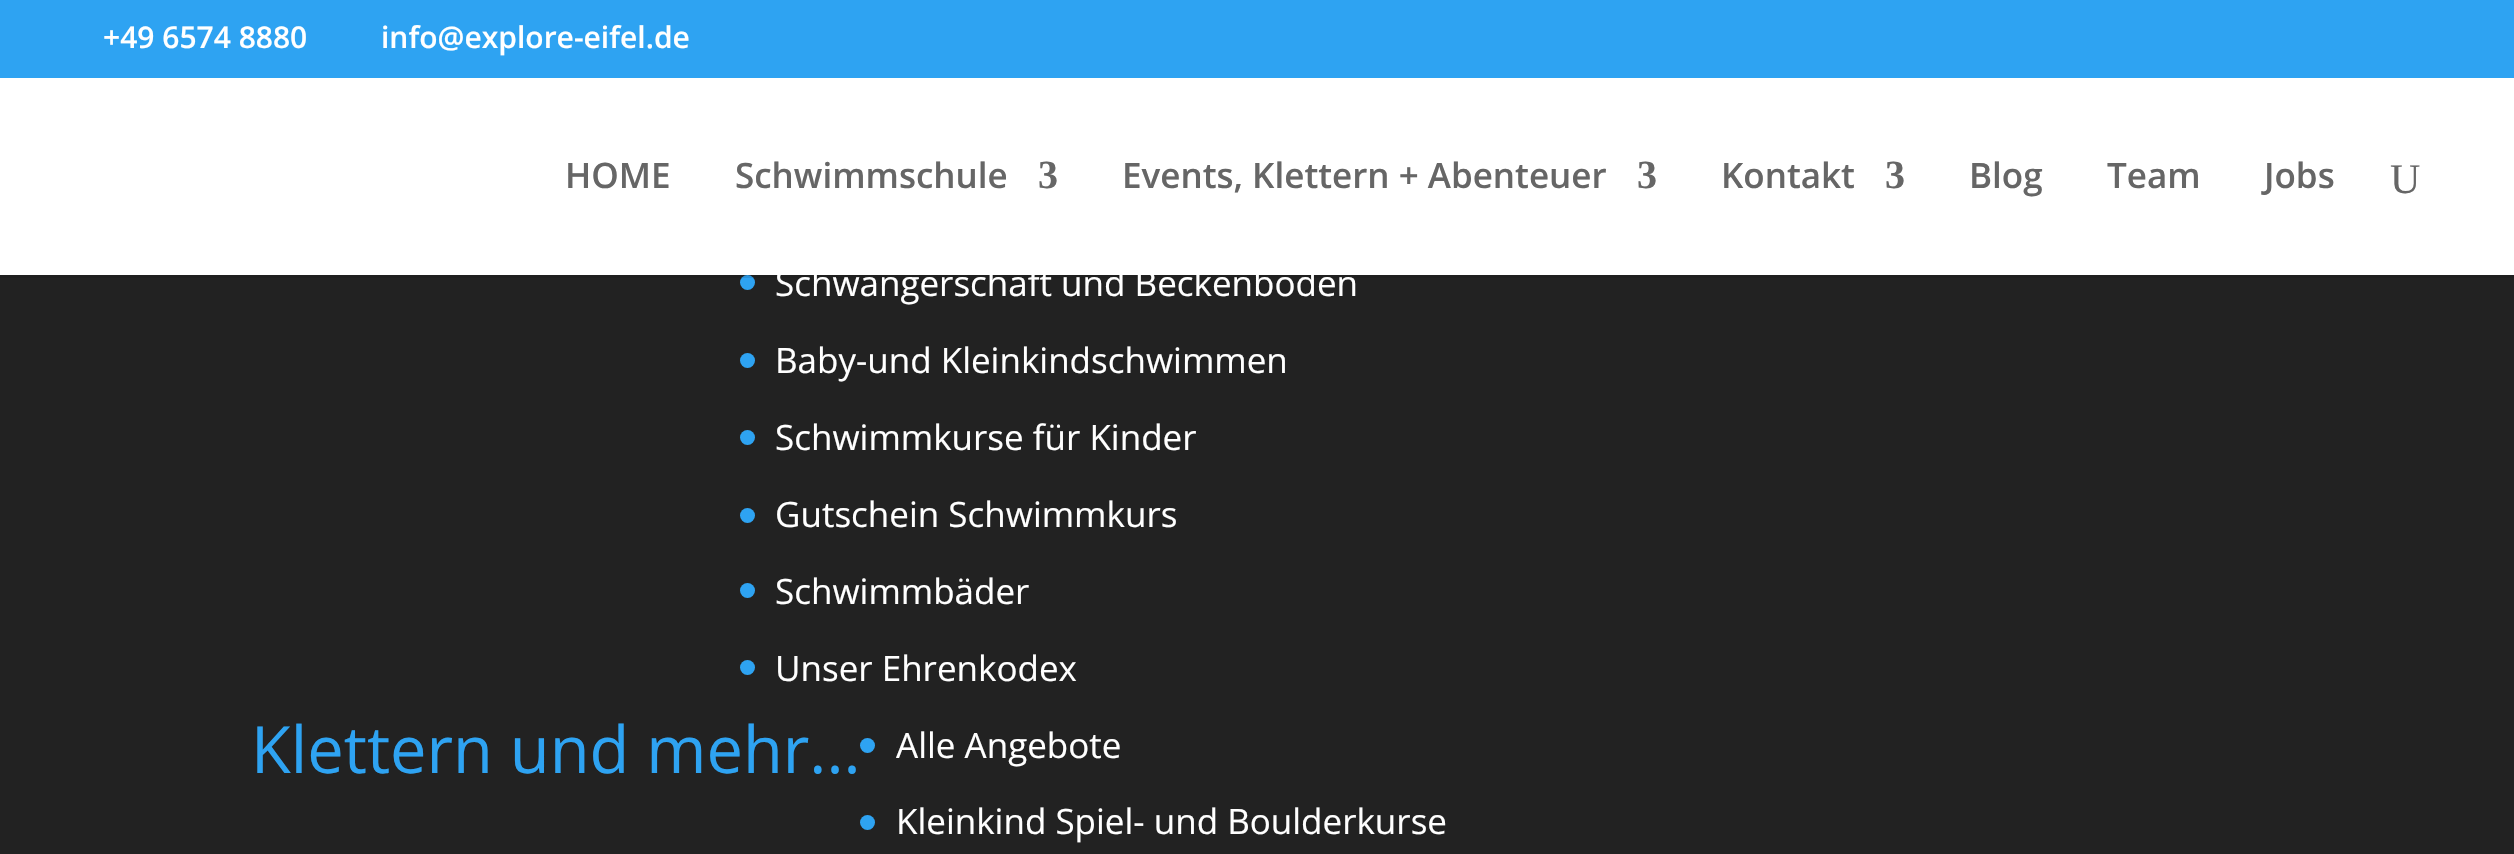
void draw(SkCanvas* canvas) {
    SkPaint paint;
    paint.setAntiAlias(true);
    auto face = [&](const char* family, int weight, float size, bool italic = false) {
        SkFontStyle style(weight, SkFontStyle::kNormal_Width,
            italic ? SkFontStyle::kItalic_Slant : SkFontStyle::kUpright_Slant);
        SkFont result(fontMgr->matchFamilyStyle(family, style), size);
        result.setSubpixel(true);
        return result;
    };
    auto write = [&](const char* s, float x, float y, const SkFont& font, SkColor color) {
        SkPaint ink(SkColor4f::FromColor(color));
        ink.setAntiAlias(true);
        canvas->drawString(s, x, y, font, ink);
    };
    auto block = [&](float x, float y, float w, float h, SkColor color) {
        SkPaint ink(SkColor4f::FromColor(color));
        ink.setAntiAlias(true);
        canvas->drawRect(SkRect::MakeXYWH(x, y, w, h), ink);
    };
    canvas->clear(SkColorSetRGB(34, 34, 34));
    block(0, 0, 2514, 78, SkColorSetRGB(46, 163, 242));
    auto kFont1 = face("Open Sans", 600, 30);
    write("+49 6574 8880", 103, 48, kFont1, SK_ColorWHITE);
    write("info@explore-eifel.de", 381, 48, kFont1, SK_ColorWHITE);
    paint.setColor(SkColorSetRGB(46, 163, 242));
    canvas->drawCircle(747.5f, 282.5f, 7.5f, paint);
    block(0, 275, 2514, 3, SkColorSetARGB(26, 0, 0, 0));
    block(0, 78, 2514, 197, SK_ColorWHITE);
    auto kFont2 = face("Open Sans", 600, 35);
    write("HOME", 565, 188, kFont2, SkColorSetRGB(102, 102, 102));
    write("Schwimmschule", 735, 188, kFont2, SkColorSetRGB(102, 102, 102));
    auto kFont3 = face("Liberation Serif", 700, 40);
    write("3", 1038, 188, kFont3, SkColorSetRGB(102, 102, 102));
    write("Events, Klettern + Abenteuer", 1122, 188, kFont2, SkColorSetRGB(102, 102, 102));
    write("3", 1637, 188, kFont3, SkColorSetRGB(102, 102, 102));
    write("Kontakt", 1721, 188, kFont2, SkColorSetRGB(102, 102, 102));
    write("3", 1885, 188, kFont3, SkColorSetRGB(102, 102, 102));
    write("Blog", 1969, 188, kFont2, SkColorSetRGB(102, 102, 102));
    write("Team", 2107, 188, kFont2, SkColorSetRGB(102, 102, 102));
    write("Jobs", 2264, 188, kFont2, SkColorSetRGB(102, 102, 102));
    auto kFont4 = face("Liberation Serif", 400, 42);
    write("U", 2390, 193, kFont4, SkColorSetRGB(102, 102, 102));
    auto kFont5 = face("Open Sans", 400, 35);
    write("Schwangerschaft und Beckenboden", 775, 296, kFont5, SK_ColorWHITE);
    canvas->drawCircle(747.5f, 360.5f, 7.5f, paint);
    write("Baby-und Kleinkindschwimmen", 775, 373, kFont5, SK_ColorWHITE);
    canvas->drawCircle(747.5f, 437.5f, 7.5f, paint);
    write("Schwimmkurse für Kinder", 775, 450, kFont5, SK_ColorWHITE);
    canvas->drawCircle(747.5f, 515.5f, 7.5f, paint);
    write("Gutschein Schwimmkurs", 775, 527, kFont5, SK_ColorWHITE);
    canvas->drawCircle(747.5f, 590.5f, 7.5f, paint);
    write("Schwimmbäder", 775, 604, kFont5, SK_ColorWHITE);
    canvas->drawCircle(747.5f, 667.5f, 7.5f, paint);
    write("Unser Ehrenkodex", 775, 681, kFont5, SK_ColorWHITE);
    auto kFont6 = face("Open Sans", 400, 65);
    write("Klettern und mehr...", 251, 773, kFont6, SkColorSetRGB(46, 163, 242));
    canvas->drawCircle(867.5f, 745.5f, 7.5f, paint);
    write("Alle Angebote", 896, 758, kFont5, SK_ColorWHITE);
    canvas->drawCircle(867.5f, 822.5f, 7.5f, paint);
    write("Kleinkind Spiel- und Boulderkurse", 896, 834, kFont5, SK_ColorWHITE);
}
